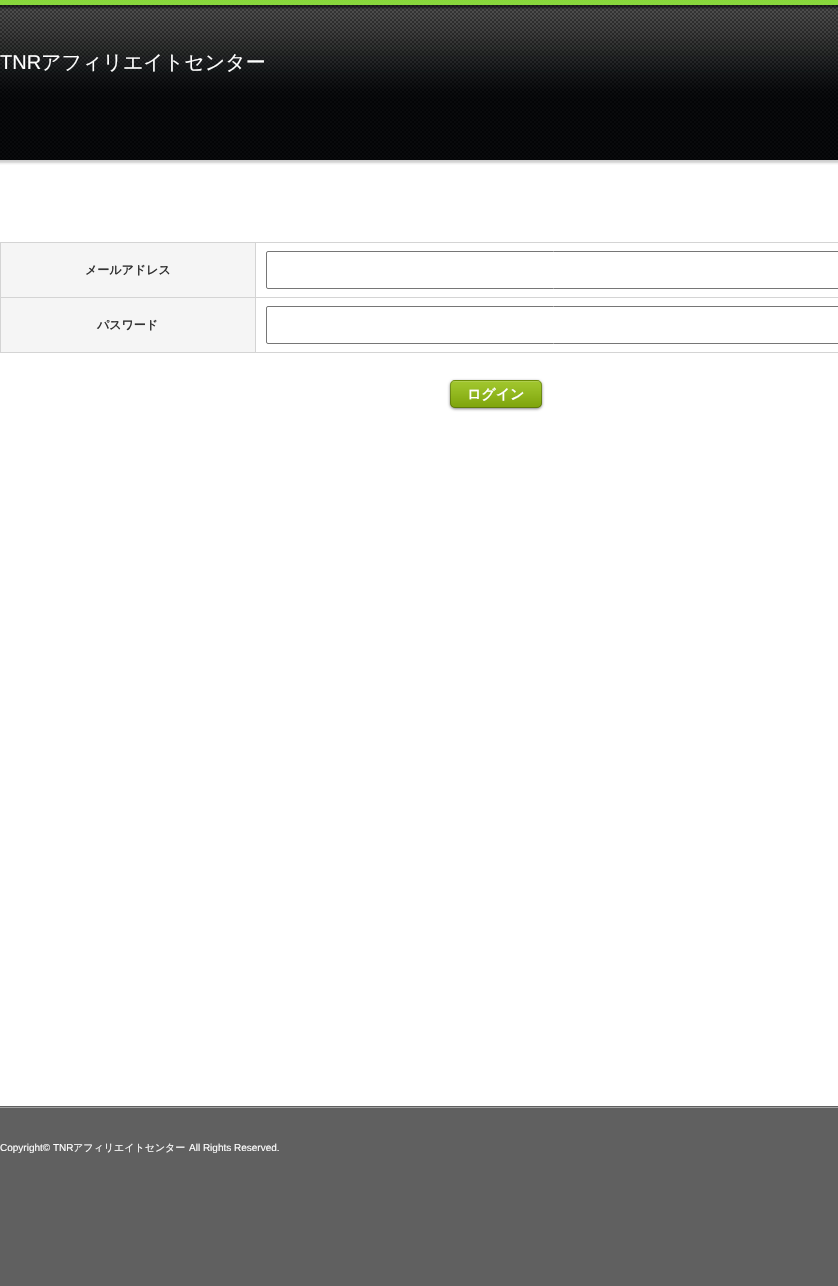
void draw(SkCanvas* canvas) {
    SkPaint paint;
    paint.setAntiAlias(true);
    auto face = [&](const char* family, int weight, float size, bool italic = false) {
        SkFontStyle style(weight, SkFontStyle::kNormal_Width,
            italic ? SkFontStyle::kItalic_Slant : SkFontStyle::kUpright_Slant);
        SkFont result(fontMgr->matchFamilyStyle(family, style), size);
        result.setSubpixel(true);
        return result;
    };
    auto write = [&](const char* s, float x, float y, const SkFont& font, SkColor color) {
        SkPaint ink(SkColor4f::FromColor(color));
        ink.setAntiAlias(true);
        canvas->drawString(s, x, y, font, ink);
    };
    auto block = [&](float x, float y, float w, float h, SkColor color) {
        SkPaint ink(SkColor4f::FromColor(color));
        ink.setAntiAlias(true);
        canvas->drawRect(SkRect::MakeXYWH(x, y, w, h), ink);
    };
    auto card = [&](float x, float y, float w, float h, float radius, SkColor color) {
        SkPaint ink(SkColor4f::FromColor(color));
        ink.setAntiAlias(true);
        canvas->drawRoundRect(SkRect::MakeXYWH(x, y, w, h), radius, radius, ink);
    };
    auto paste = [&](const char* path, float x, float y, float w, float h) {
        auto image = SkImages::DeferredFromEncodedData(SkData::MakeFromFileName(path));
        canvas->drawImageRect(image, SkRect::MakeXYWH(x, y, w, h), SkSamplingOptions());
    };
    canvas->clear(SK_ColorWHITE);
    paste("pic1.png", 0, 0, 838, 165);
    auto kFont1 = face("Liberation Sans", 400, 20);
    write("TNR", 0, 69, kFont1, SK_ColorWHITE);
    auto kFont2 = face("WenQuanYi Zen Hei", 500, 20);
    write("アフィリエイトセンター", 41, 69, kFont2, SK_ColorWHITE);
    block(1, 243, 254, 54, SkColorSetRGB(245, 245, 245));
    block(255, 242, 583, 1, SkColorSetRGB(212, 212, 212));
    block(255, 297, 583, 1, SkColorSetRGB(212, 212, 212));
    block(255, 352, 583, 1, SkColorSetRGB(212, 212, 212));
    block(255, 297, 1, 56, SkColorSetRGB(212, 212, 212));
    block(0, 297, 256, 1, SkColorSetRGB(212, 212, 212));
    block(255, 242, 1, 56, SkColorSetRGB(212, 212, 212));
    block(0, 242, 256, 1, SkColorSetRGB(212, 212, 212));
    block(0, 352, 256, 1, SkColorSetRGB(212, 212, 212));
    block(0, 297, 1, 56, SkColorSetRGB(212, 212, 212));
    block(0, 242, 1, 56, SkColorSetRGB(212, 212, 212));
    auto kFont3 = face("WenQuanYi Zen Hei", 700, 12);
    write("メールアドレス", 85, 274, kFont3, SkColorSetRGB(51, 51, 51));
    paint.setStyle(SkPaint::kStroke_Style);
    paint.setStrokeWidth(1);
    paint.setColor(SkColorSetRGB(118, 118, 118));
    canvas->drawRoundRect(SkRect::MakeXYWH(266.5f, 251.5f, 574, 37), 1.5f, 1.5f, paint);
    block(1, 298, 254, 54, SkColorSetRGB(245, 245, 245));
    write("パスワード", 97, 329, kFont3, SkColorSetRGB(51, 51, 51));
    canvas->drawRoundRect(SkRect::MakeXYWH(266.5f, 306.5f, 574, 37), 1.5f, 1.5f, paint);
    paint.setStyle(SkPaint::kFill_Style);
    paint.setColor(SkColorSetARGB(128, 0, 0, 0));
    paint.setMaskFilter(SkMaskFilter::MakeBlur(kNormal_SkBlurStyle, 1.5f));
    canvas->drawRoundRect(SkRect::MakeXYWH(450, 381, 92, 28), 5, 5, paint);
    paint.setMaskFilter(nullptr);
    card(450, 380, 92, 28, 5, SkColorSetRGB(145, 189, 9));
    paste("pic2.png", 450, 381, 92, 27);
    paint.setStyle(SkPaint::kStroke_Style);
    paint.setColor(SkColorSetARGB(64, 0, 0, 0));
    canvas->drawRoundRect(SkRect::MakeXYWH(450.5f, 380.5f, 91, 27), 4.5f, 4.5f, paint);
    auto kFont4 = face("WenQuanYi Zen Hei", 700, 14);
    write("ログイン", 467, 399, kFont4, SK_ColorWHITE);
    paste("pic3.png", 0, 1106, 838, 180);
    auto kFont5 = face("Liberation Sans", 400, 10);
    write("Copyright© TNR", 0, 1151, kFont5, SK_ColorWHITE);
    auto kFont6 = face("WenQuanYi Zen Hei", 500, 10);
    write("アフィリエイトセンター", 73, 1151, kFont6, SK_ColorWHITE);
    write("All Rights Reserved.", 189, 1151, kFont5, SK_ColorWHITE);
}
